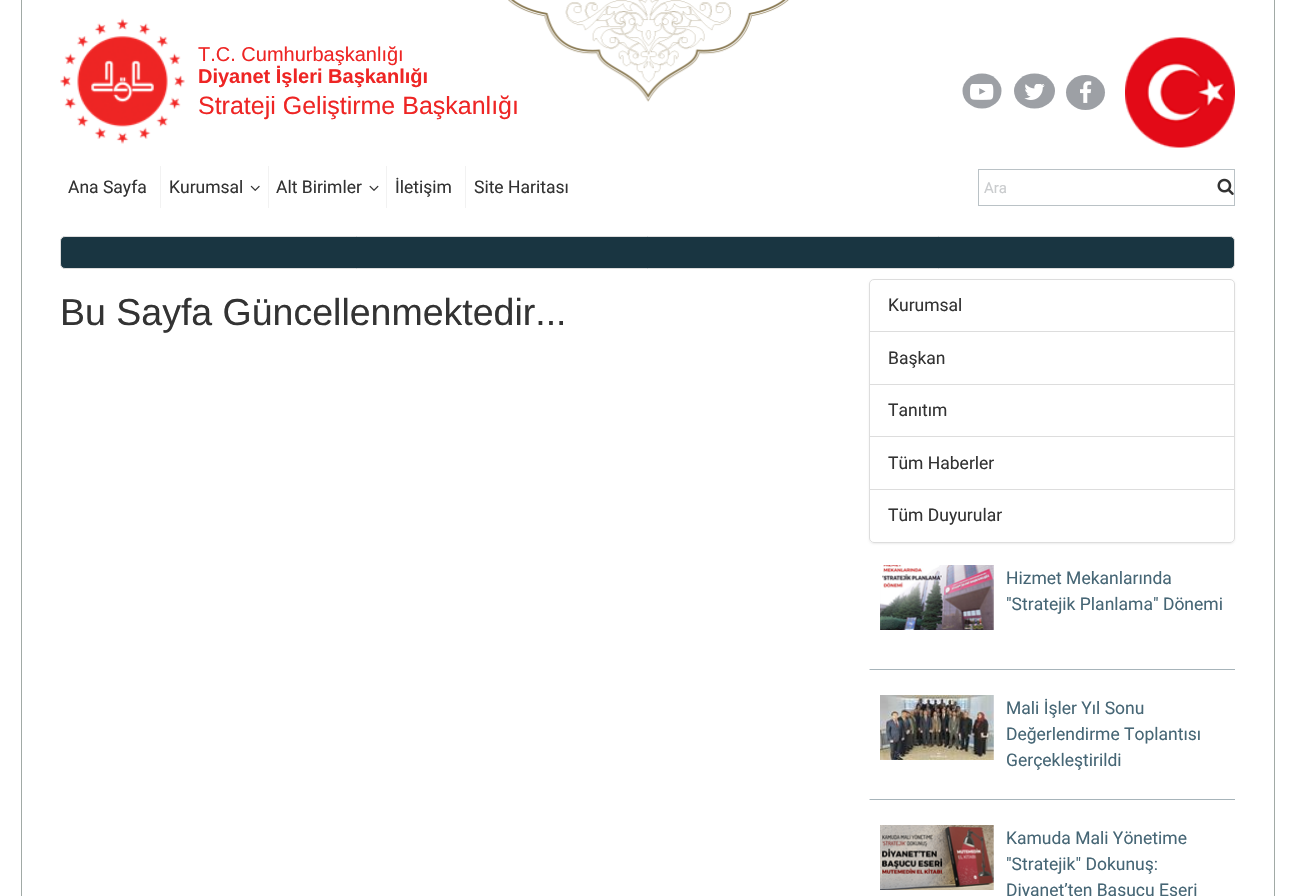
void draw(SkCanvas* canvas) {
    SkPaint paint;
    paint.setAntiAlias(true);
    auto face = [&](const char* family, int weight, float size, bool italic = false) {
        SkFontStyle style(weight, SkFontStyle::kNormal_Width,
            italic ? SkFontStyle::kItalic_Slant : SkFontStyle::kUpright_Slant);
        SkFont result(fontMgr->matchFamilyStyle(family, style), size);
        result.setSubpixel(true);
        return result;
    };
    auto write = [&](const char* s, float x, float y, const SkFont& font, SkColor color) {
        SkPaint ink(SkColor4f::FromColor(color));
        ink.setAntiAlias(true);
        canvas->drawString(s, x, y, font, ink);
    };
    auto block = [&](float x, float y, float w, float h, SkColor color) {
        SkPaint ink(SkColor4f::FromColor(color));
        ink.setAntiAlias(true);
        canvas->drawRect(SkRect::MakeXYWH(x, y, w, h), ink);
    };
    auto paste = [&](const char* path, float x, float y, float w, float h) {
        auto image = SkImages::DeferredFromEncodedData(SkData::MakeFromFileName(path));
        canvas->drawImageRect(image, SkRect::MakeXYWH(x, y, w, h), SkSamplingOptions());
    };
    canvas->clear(SK_ColorWHITE);
    block(1274, 0, 1, 896, SkColorSetRGB(161, 170, 166));
    block(21, 0, 1, 896, SkColorSetRGB(161, 170, 166));
    paste("pic1.png", 508, 0, 281, 102);
    paste("pic2.png", 60, 18, 125, 126);
    auto kFont1 = face("Liberation Sans", 400, 20);
    write("T.C. Cumhurbaşkanlığı", 198, 61, kFont1, SkColorSetRGB(238, 37, 36));
    auto kFont2 = face("Liberation Sans", 700, 20);
    write("Diyanet İşleri Başkanlığı", 198, 83, kFont2, SkColorSetRGB(238, 37, 36));
    auto kFont3 = face("Liberation Sans", 400, 25);
    write("Strateji Geliştirme Başkanlığı", 198, 114, kFont3, SkColorSetRGB(238, 37, 36));
    paint.setColor(SkColorSetRGB(157, 160, 165));
    canvas->drawOval(SkRect::MakeXYWH(962.5f, 73.5f, 39, 35), paint);
    paste("pic3.png", 970, 84, 24, 16);
    canvas->drawOval(SkRect::MakeXYWH(1014, 73.5f, 41, 35), paint);
    paste("pic4.png", 1024, 84, 21, 16);
    canvas->drawOval(SkRect::MakeXYWH(1066, 75, 39, 35), paint);
    paste("pic5.png", 1080, 81, 12, 22);
    paste("pic6.png", 1125, 37, 110, 111);
    block(160, 166, 1, 42, SkColorSetRGB(242, 242, 242));
    auto kFont4 = face("Roboto", 400, 17.5f);
    write("Ana Sayfa", 68, 193, kFont4, SkColorSetRGB(51, 51, 51));
    block(268, 166, 1, 42, SkColorSetRGB(242, 242, 242));
    write("Kurumsal", 169, 193, kFont4, SkColorSetRGB(51, 51, 51));
    paste("pic7.png", 250, 185, 10, 6);
    block(386, 166, 1, 42, SkColorSetRGB(242, 242, 242));
    write("Alt Birimler", 276, 193, kFont4, SkColorSetRGB(51, 51, 51));
    paste("pic8.png", 369, 185, 10, 6);
    block(465, 166, 1, 42, SkColorSetRGB(242, 242, 242));
    write("İletişim", 395, 193, kFont4, SkColorSetRGB(51, 51, 51));
    write("Site Haritası", 474, 193, kFont4, SkColorSetRGB(51, 51, 51));
    paint.setStyle(SkPaint::kStroke_Style);
    paint.setStrokeWidth(1);
    paint.setColor(SkColorSetRGB(186, 194, 198));
    canvas->drawRect(SkRect::MakeXYWH(978.5f, 169.5f, 256, 36), paint);
    auto kFont5 = face("Roboto", 400, 15);
    write("Ara", 984, 193, kFont5, SkColorSetRGB(202, 204, 206));
    paste("pic9.png", 1217, 178, 17, 17);
    paint.setStyle(SkPaint::kFill_Style);
    paint.setColor(SkColorSetRGB(25, 53, 65));
    canvas->drawRoundRect(SkRect::MakeXYWH(60.5f, 236.5f, 1174, 32), 4.5f, 4.5f, paint);
    paint.setStyle(SkPaint::kStroke_Style);
    paint.setColor(SkColorSetRGB(220, 220, 220));
    canvas->drawRoundRect(SkRect::MakeXYWH(60.5f, 236.5f, 1174, 32), 4.5f, 4.5f, paint);
    auto kFont6 = face("Liberation Sans", 400, 37.5f);
    write("Bu Sayfa Güncellenmektedir...", 60, 325, kFont6, SkColorSetRGB(51, 51, 51));
    canvas->save();
    canvas->clipPath(SkPathBuilder(SkPathFillType::kEvenOdd).moveTo(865, 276).lineTo(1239, 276).lineTo(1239, 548).lineTo(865, 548).close().moveTo(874, 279).lineTo(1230, 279).cubicTo(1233, 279, 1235, 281, 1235, 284).lineTo(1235, 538).cubicTo(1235, 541, 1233, 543, 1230, 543).lineTo(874, 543).cubicTo(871, 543, 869, 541, 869, 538).lineTo(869, 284).cubicTo(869, 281, 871, 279, 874, 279).close().detach(), true);
    paint.setStyle(SkPaint::kFill_Style);
    paint.setColor(SkColorSetARGB(18, 0, 0, 0));
    paint.setMaskFilter(SkMaskFilter::MakeBlur(kNormal_SkBlurStyle, 1));
    canvas->drawRoundRect(SkRect::MakeXYWH(869, 280, 366, 264), 5, 5, paint);
    paint.setMaskFilter(nullptr);
    canvas->restore();
    paint.setStyle(SkPaint::kStroke_Style);
    paint.setColor(SkColorSetRGB(221, 221, 221));
    canvas->drawPath(SkPathBuilder().moveTo(874, 279.5f).lineTo(1230, 279.5f).cubicTo(1232.5f, 279.5f, 1234.5f, 281.5f, 1234.5f, 284).lineTo(1234.5f, 332.5f).lineTo(869.5f, 332.5f).lineTo(869.5f, 284).cubicTo(869.5f, 281.5f, 871.5f, 279.5f, 874, 279.5f).close().detach(), paint);
    write("Kurumsal", 888, 311, kFont4, SkColorSetRGB(51, 51, 51));
    block(870, 332, 364, 1, SK_ColorWHITE);
    canvas->drawRect(SkRect::MakeXYWH(869.5f, 331.5f, 365, 53), paint);
    write("Başkan", 888, 364, kFont4, SkColorSetRGB(51, 51, 51));
    canvas->drawRect(SkRect::MakeXYWH(869.5f, 384.5f, 365, 53), paint);
    write("Tanıtım", 888, 416, kFont4, SkColorSetRGB(51, 51, 51));
    block(870, 437, 364, 1, SK_ColorWHITE);
    canvas->drawRect(SkRect::MakeXYWH(869.5f, 436.5f, 365, 53), paint);
    write("Tüm Haberler", 888, 469, kFont4, SkColorSetRGB(51, 51, 51));
    paint.setStyle(SkPaint::kFill_Style);
    paint.setColor(SK_ColorWHITE);
    canvas->drawPath(SkPathBuilder().moveTo(869.5f, 489.5f).lineTo(1234.5f, 489.5f).lineTo(1234.5f, 538).cubicTo(1234.5f, 540.5f, 1232.5f, 542.5f, 1230, 542.5f).lineTo(874, 542.5f).cubicTo(871.5f, 542.5f, 869.5f, 540.5f, 869.5f, 538).close().detach(), paint);
    paint.setStyle(SkPaint::kStroke_Style);
    paint.setColor(SkColorSetRGB(221, 221, 221));
    canvas->drawPath(SkPathBuilder().moveTo(869.5f, 489.5f).lineTo(1234.5f, 489.5f).lineTo(1234.5f, 538).cubicTo(1234.5f, 540.5f, 1232.5f, 542.5f, 1230, 542.5f).lineTo(874, 542.5f).cubicTo(871.5f, 542.5f, 869.5f, 540.5f, 869.5f, 538).close().detach(), paint);
    write("Tüm Duyurular", 888, 521, kFont4, SkColorSetRGB(51, 51, 51));
    paint.setStyle(SkPaint::kFill_Style);
    paint.setColor(SkColorSetRGB(167, 180, 186));
    canvas->drawPath(SkPathBuilder().moveTo(1235, 670).lineTo(869, 670).lineTo(870, 669).lineTo(1235, 669).close().detach(), paint);
    paint.setColor(SkColorSetARGB(41, 255, 255, 255));
    canvas->drawPath(SkPathBuilder().moveTo(869, 670).lineTo(869, 555).lineTo(870, 555).lineTo(870, 669).close().detach(), paint);
    paste("pic10.png", 880, 565, 114, 65);
    write("Hizmet Mekanlarında", 1006, 584, kFont4, SkColorSetRGB(70, 102, 117));
    write("\"Stratejik Planlama\" Dönemi", 1006, 610, kFont4, SkColorSetRGB(70, 102, 117));
    paint.setColor(SkColorSetRGB(167, 180, 186));
    canvas->drawPath(SkPathBuilder().moveTo(1235, 800).lineTo(869, 800).lineTo(870, 799).lineTo(1235, 799).close().detach(), paint);
    paint.setColor(SkColorSetARGB(41, 255, 255, 255));
    canvas->drawPath(SkPathBuilder().moveTo(869, 800).lineTo(869, 685).lineTo(870, 685).lineTo(870, 799).close().detach(), paint);
    paste("pic11.png", 880, 695, 114, 65);
    write("Mali İşler Yıl Sonu", 1006, 714, kFont4, SkColorSetRGB(70, 102, 117));
    write("Değerlendirme Toplantısı", 1006, 740, kFont4, SkColorSetRGB(70, 102, 117));
    write("Gerçekleştirildi", 1006, 766, kFont4, SkColorSetRGB(70, 102, 117));
    paste("pic12.png", 880, 825, 114, 65);
    write("Kamuda Mali Yönetime", 1006, 844, kFont4, SkColorSetRGB(70, 102, 117));
    write("\"Stratejik\" Dokunuş:", 1006, 870, kFont4, SkColorSetRGB(70, 102, 117));
    write("Diyanet’ten Başucu Eseri", 1006, 896, kFont4, SkColorSetRGB(70, 102, 117));
}
